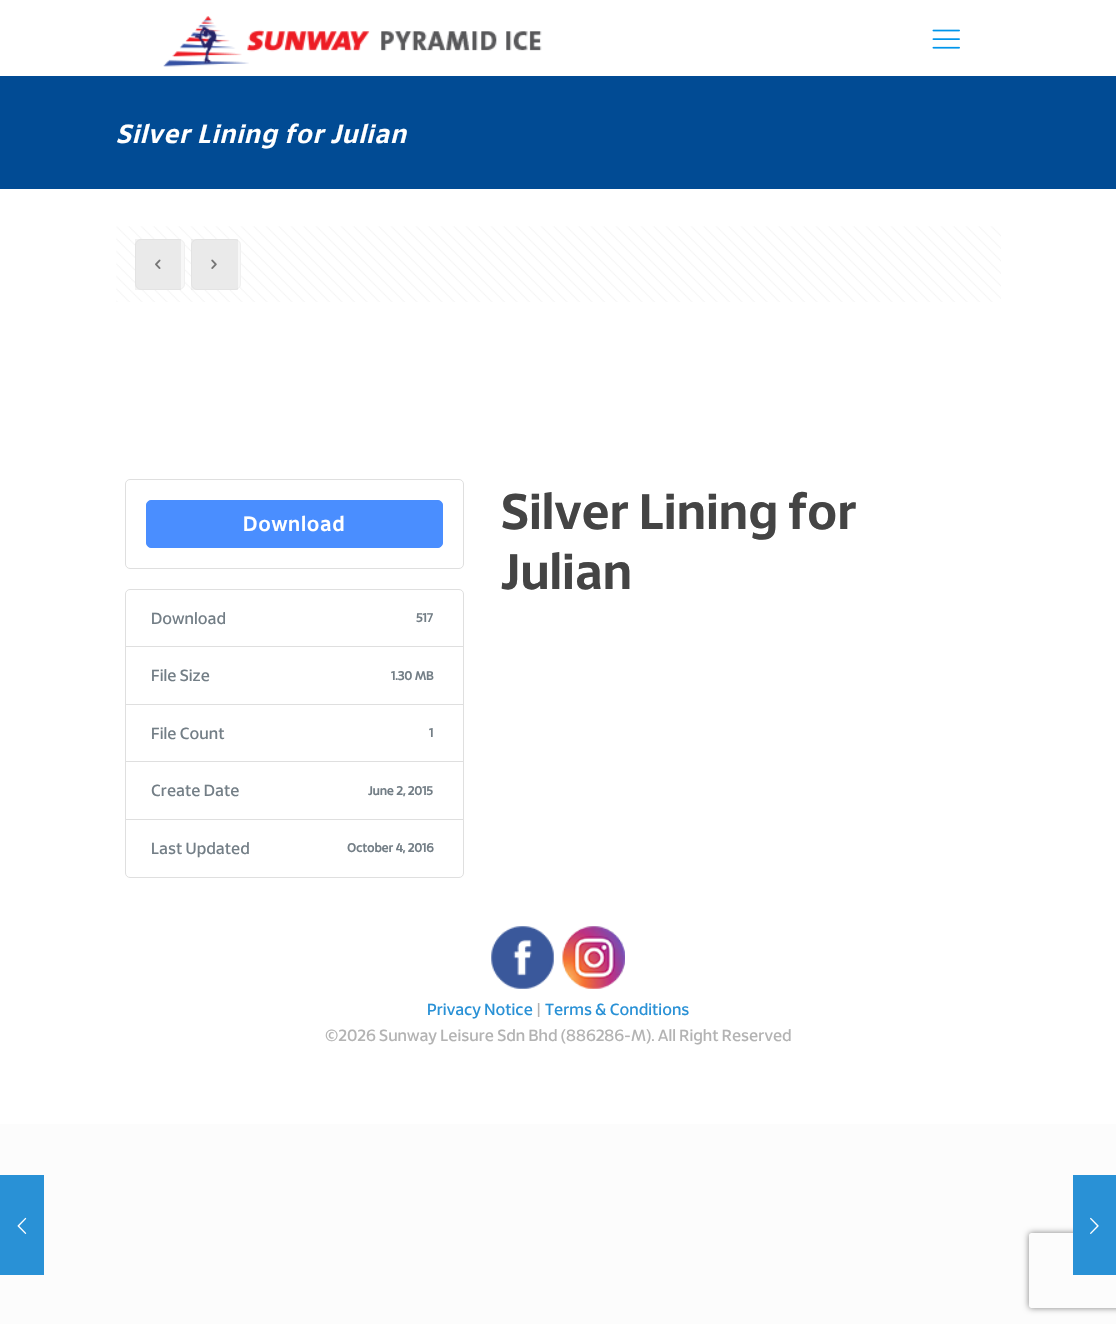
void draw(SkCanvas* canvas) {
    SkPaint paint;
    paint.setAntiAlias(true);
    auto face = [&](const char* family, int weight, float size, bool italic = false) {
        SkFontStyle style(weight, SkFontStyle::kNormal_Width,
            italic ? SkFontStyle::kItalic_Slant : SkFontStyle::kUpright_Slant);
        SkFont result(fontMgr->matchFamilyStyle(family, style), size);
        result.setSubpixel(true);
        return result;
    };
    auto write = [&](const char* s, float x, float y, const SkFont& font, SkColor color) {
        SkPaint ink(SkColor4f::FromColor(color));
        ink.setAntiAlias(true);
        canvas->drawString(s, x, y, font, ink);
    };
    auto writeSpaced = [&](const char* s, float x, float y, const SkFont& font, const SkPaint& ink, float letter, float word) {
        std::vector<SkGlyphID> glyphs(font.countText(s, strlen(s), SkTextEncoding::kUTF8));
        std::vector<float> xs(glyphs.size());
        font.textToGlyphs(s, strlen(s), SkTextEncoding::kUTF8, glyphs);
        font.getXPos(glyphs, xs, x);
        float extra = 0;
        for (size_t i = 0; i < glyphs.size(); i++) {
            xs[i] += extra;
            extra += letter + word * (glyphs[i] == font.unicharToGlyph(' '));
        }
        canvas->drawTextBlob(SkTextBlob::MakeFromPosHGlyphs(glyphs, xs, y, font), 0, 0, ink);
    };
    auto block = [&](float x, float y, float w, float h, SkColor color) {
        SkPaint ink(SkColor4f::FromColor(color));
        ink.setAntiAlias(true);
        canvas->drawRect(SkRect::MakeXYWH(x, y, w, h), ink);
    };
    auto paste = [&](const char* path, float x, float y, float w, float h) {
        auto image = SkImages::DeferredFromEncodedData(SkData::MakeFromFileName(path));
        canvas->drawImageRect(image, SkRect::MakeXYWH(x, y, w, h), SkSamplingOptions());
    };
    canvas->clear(SkColorSetRGB(252, 252, 252));
    block(0, 0, 1116, 1124, SK_ColorWHITE);
    paste("pic1.png", 163, 16, 379, 51);
    paste("pic2.png", 932, 29, 28, 20);
    block(0, 76, 1116, 113, SkColorSetRGB(1, 75, 148));
    auto kFont1 = face("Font", 700, 26.25f, true);
    paint.setColor(SK_ColorWHITE);
    writeSpaced("Silver Lining for Julian", 116, 143, kFont1, paint, 1.25f, 0);
    paste("pic3.png", 116, 226, 885, 76);
    paint.setColor(SkColorSetRGB(247, 247, 247));
    canvas->drawRoundRect(SkRect::MakeXYWH(135.5f, 239.5f, 49, 50), 5.5f, 5.5f, paint);
    paint.setStyle(SkPaint::kStroke_Style);
    paint.setStrokeWidth(1);
    paint.setColor(SkColorSetRGB(240, 240, 240));
    canvas->drawRoundRect(SkRect::MakeXYWH(135.5f, 239.5f, 49, 50), 5.5f, 5.5f, paint);
    paste("pic4.png", 155, 259, 6, 10);
    block(135, 239, 46, 51, SkColorSetARGB(13, 0, 0, 0));
    paint.setStyle(SkPaint::kFill_Style);
    paint.setColor(SkColorSetRGB(247, 247, 247));
    canvas->drawRoundRect(SkRect::MakeXYWH(191.5f, 239.5f, 49, 50), 5.5f, 5.5f, paint);
    paint.setStyle(SkPaint::kStroke_Style);
    paint.setColor(SkColorSetRGB(240, 240, 240));
    canvas->drawRoundRect(SkRect::MakeXYWH(191.5f, 239.5f, 49, 50), 5.5f, 5.5f, paint);
    paste("pic5.png", 211, 259, 6, 10);
    block(191, 239, 47, 51, SkColorSetARGB(13, 0, 0, 0));
    paint.setColor(SkColorSetRGB(223, 223, 223));
    canvas->drawRoundRect(SkRect::MakeXYWH(125.5f, 479.5f, 338, 89), 4.5f, 4.5f, paint);
    paint.setStyle(SkPaint::kFill_Style);
    paint.setColor(SkColorSetRGB(74, 142, 255));
    canvas->drawRoundRect(SkRect::MakeXYWH(146.5f, 500.5f, 296, 47), 4.5f, 4.5f, paint);
    paint.setStyle(SkPaint::kStroke_Style);
    canvas->drawRoundRect(SkRect::MakeXYWH(146.5f, 500.5f, 296, 47), 4.5f, 4.5f, paint);
    auto kFont2 = face("Font", 700, 20);
    paint.setStyle(SkPaint::kFill_Style);
    paint.setColor(SK_ColorWHITE);
    writeSpaced("Download", 243, 531, kFont2, paint, 1.25f, 0);
    paint.setStyle(SkPaint::kStroke_Style);
    paint.setColor(SkColorSetRGB(223, 223, 223));
    canvas->drawPath(SkPathBuilder().moveTo(130, 589.5f).lineTo(459, 589.5f).cubicTo(461.5f, 589.5f, 463.5f, 591.5f, 463.5f, 594).lineTo(463.5f, 647.5f).lineTo(125.5f, 647.5f).lineTo(125.5f, 594).cubicTo(125.5f, 591.5f, 127.5f, 589.5f, 130, 589.5f).close().detach(), paint);
    auto kFont3 = face("Font", 500, 16.25f);
    write("Download", 151, 624, kFont3, SkColorSetRGB(115, 126, 134));
    auto kFont4 = face("Font", 700, 12.25f);
    write("517", 416, 622, kFont4, SkColorSetRGB(115, 126, 134));
    block(126, 647, 337, 1, SK_ColorWHITE);
    canvas->drawRect(SkRect::MakeXYWH(125.5f, 646.5f, 338, 58), paint);
    write("File Size", 151, 681, kFont3, SkColorSetRGB(115, 126, 134));
    write("1.30 MB", 391, 680, kFont4, SkColorSetRGB(115, 126, 134));
    canvas->drawRect(SkRect::MakeXYWH(125.5f, 704.5f, 338, 58), paint);
    write("File Count", 151, 739, kFont3, SkColorSetRGB(115, 126, 134));
    write("1", 429, 737, kFont4, SkColorSetRGB(115, 126, 134));
    block(126, 762, 337, 1, SK_ColorWHITE);
    canvas->drawRect(SkRect::MakeXYWH(125.5f, 761.5f, 338, 58), paint);
    write("Create Date", 151, 796, kFont3, SkColorSetRGB(115, 126, 134));
    write("June 2, 2015", 368, 795, kFont4, SkColorSetRGB(115, 126, 134));
    paint.setStyle(SkPaint::kFill_Style);
    paint.setColor(SK_ColorWHITE);
    canvas->drawPath(SkPathBuilder().moveTo(125.5f, 819.5f).lineTo(463.5f, 819.5f).lineTo(463.5f, 873).cubicTo(463.5f, 875.5f, 461.5f, 877.5f, 459, 877.5f).lineTo(130, 877.5f).cubicTo(127.5f, 877.5f, 125.5f, 875.5f, 125.5f, 873).close().detach(), paint);
    paint.setStyle(SkPaint::kStroke_Style);
    paint.setColor(SkColorSetRGB(223, 223, 223));
    canvas->drawPath(SkPathBuilder().moveTo(125.5f, 819.5f).lineTo(463.5f, 819.5f).lineTo(463.5f, 873).cubicTo(463.5f, 875.5f, 461.5f, 877.5f, 459, 877.5f).lineTo(130, 877.5f).cubicTo(127.5f, 877.5f, 125.5f, 875.5f, 125.5f, 873).close().detach(), paint);
    write("Last Updated", 151, 854, kFont3, SkColorSetRGB(115, 126, 134));
    write("October 4, 2016", 347, 852, kFont4, SkColorSetRGB(115, 126, 134));
    auto kFont5 = face("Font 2", 700, 50);
    write("Silver Lining for", 501, 529, kFont5, SkColorSetRGB(68, 68, 68));
    write("Julian", 501, 589, kFont5, SkColorSetRGB(68, 68, 68));
    paste("pic6.png", 491, 926, 63, 63);
    paste("pic7.png", 562, 926, 63, 63);
    write("Privacy Notice", 427, 1015, kFont3, SkColorSetRGB(41, 145, 214));
    write("|", 536, 1015, kFont3, SkColorSetRGB(179, 179, 179));
    write("Terms & Conditions", 545, 1015, kFont3, SkColorSetRGB(41, 145, 214));
    write("©2026 Sunway Leisure Sdn Bhd (886286-M). All Right Reserved", 325, 1041, kFont3, SkColorSetRGB(179, 179, 179));
    block(0, 1175, 44, 100, SkColorSetRGB(41, 145, 214));
    paste("pic8.png", 17, 1217, 10, 17);
    canvas->save();
    canvas->clipPath(SkPathBuilder(SkPathFillType::kEvenOdd).moveTo(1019, 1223).lineTo(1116, 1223).lineTo(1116, 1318).lineTo(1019, 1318).close().moveTo(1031.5f, 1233).lineTo(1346.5f, 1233).cubicTo(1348, 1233, 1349, 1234, 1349, 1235.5f).lineTo(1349, 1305.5f).cubicTo(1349, 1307, 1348, 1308, 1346.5f, 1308).lineTo(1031.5f, 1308).cubicTo(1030, 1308, 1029, 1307, 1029, 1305.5f).lineTo(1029, 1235.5f).cubicTo(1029, 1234, 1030, 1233, 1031.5f, 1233).close().detach(), true);
    paint.setStyle(SkPaint::kFill_Style);
    paint.setColor(SkColorSetRGB(128, 128, 128));
    paint.setMaskFilter(SkMaskFilter::MakeBlur(kNormal_SkBlurStyle, 3));
    canvas->drawRoundRect(SkRect::MakeXYWH(1029, 1233, 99, 75), 2.5f, 2.5f, paint);
    paint.setMaskFilter(nullptr);
    canvas->restore();
    block(1073, 1175, 43, 100, SkColorSetRGB(41, 145, 214));
    paste("pic9.png", 1090, 1217, 9, 17);
}
